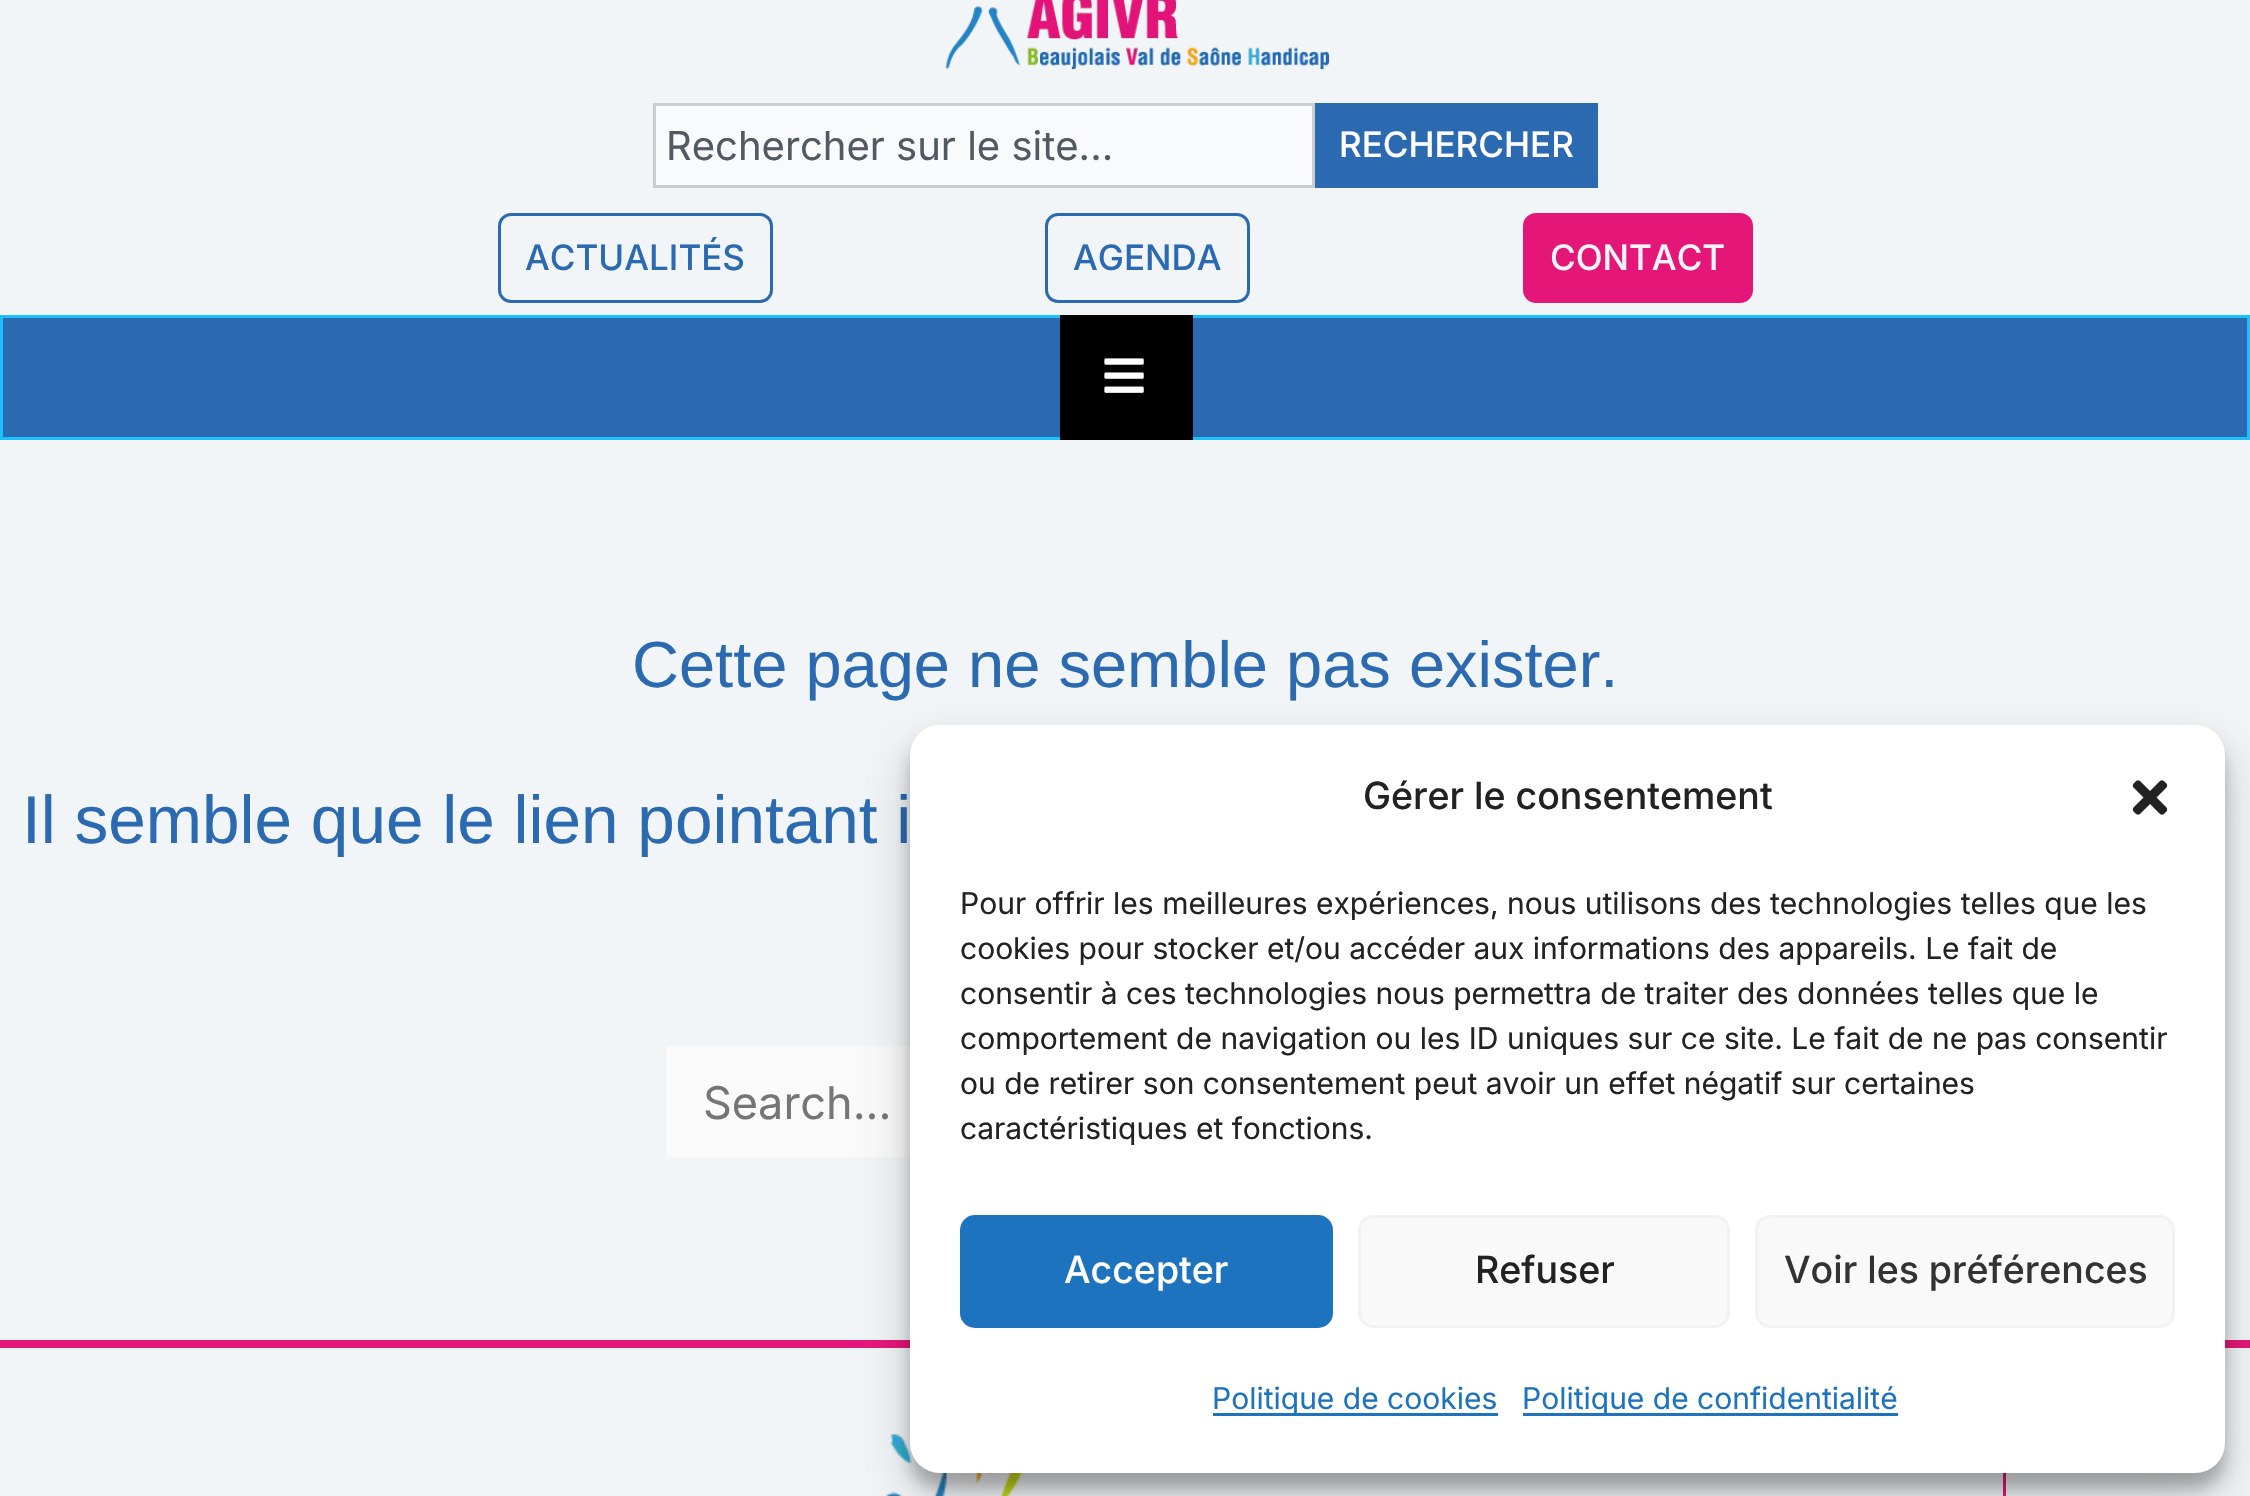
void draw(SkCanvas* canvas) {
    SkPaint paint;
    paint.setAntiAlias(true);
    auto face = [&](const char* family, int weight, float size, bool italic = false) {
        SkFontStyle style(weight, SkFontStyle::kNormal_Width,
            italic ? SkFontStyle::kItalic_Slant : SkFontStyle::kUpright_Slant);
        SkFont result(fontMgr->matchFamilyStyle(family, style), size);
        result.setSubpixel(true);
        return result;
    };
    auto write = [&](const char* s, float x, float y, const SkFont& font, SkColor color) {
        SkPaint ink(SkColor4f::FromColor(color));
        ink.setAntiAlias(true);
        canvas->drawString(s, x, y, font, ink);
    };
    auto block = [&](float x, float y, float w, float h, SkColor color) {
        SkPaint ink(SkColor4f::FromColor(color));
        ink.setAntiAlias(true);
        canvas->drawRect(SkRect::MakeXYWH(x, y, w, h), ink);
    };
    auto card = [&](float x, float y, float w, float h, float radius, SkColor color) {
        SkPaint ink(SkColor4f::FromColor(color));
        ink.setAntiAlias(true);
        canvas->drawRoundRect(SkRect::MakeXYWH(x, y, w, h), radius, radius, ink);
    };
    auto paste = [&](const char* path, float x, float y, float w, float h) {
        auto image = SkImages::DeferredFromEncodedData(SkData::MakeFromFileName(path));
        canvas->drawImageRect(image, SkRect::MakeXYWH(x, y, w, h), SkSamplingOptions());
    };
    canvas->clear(SkColorSetRGB(242, 245, 247));
    paste("pic1.png", 945, 0, 385, 70);
    paint.setColor(SkColorSetRGB(249, 250, 251));
    canvas->drawRect(SkRect::MakeXYWH(654.5f, 104.5f, 659, 82), paint);
    paint.setStyle(SkPaint::kStroke_Style);
    paint.setStrokeWidth(3);
    paint.setColor(SkColorSetRGB(205, 205, 205));
    canvas->drawRect(SkRect::MakeXYWH(654.5f, 104.5f, 659, 82), paint);
    auto kFont1 = face("Inter", 400, 40);
    write("Rechercher sur le site...", 666, 160, kFont1, SkColorSetRGB(81, 89, 98));
    block(1315, 103, 283, 85, SkColorSetRGB(43, 106, 177));
    auto kFont2 = face("Inter", 500, 35);
    write("RECHERCHER", 1339, 157, kFont2, SK_ColorWHITE);
    paint.setColor(SkColorSetRGB(43, 106, 177));
    canvas->drawRoundRect(SkRect::MakeXYWH(499.5f, 214.5f, 272, 87), 11.5f, 11.5f, paint);
    write("ACTUALITÉS", 525, 270, kFont2, SkColorSetRGB(43, 106, 177));
    canvas->drawRoundRect(SkRect::MakeXYWH(1046.5f, 214.5f, 202, 87), 11.5f, 11.5f, paint);
    write("AGENDA", 1073, 270, kFont2, SkColorSetRGB(43, 106, 177));
    paint.setStyle(SkPaint::kFill_Style);
    paint.setColor(SkColorSetRGB(228, 23, 121));
    canvas->drawRoundRect(SkRect::MakeXYWH(1524.5f, 214.5f, 227, 87), 11.5f, 11.5f, paint);
    paint.setStyle(SkPaint::kStroke_Style);
    canvas->drawRoundRect(SkRect::MakeXYWH(1524.5f, 214.5f, 227, 87), 11.5f, 11.5f, paint);
    write("CONTACT", 1550, 270, kFont2, SkColorSetRGB(242, 245, 247));
    paint.setStyle(SkPaint::kFill_Style);
    paint.setColor(SkColorSetRGB(43, 106, 177));
    canvas->drawRect(SkRect::MakeXYWH(1.5f, 316.5f, 2247, 122), paint);
    paint.setStyle(SkPaint::kStroke_Style);
    paint.setColor(SkColorSetRGB(27, 193, 255));
    canvas->drawRect(SkRect::MakeXYWH(1.5f, 316.5f, 2247, 122), paint);
    block(1060, 315, 133, 125, SK_ColorBLACK);
    paste("pic2.png", 1104, 358, 40, 35);
    auto kFont3 = face("Liberation Sans", 400, 65);
    write("Cette page ne semble pas exister.", 632, 687, kFont3, SkColorSetRGB(43, 106, 177));
    auto kFont4 = face("Liberation Sans", 400, 67.5f);
    write("Il semble que le lien pointant i", 22, 843, kFont4, SkColorSetRGB(43, 106, 177));
    paint.setStyle(SkPaint::kFill_Style);
    paint.setColor(SkColorSetRGB(250, 250, 250));
    canvas->drawRoundRect(SkRect::MakeXYWH(664.5f, 1044.5f, 922, 114), 3.5f, 3.5f, paint);
    paint.setStyle(SkPaint::kStroke_Style);
    paint.setColor(SkColorSetRGB(242, 245, 247));
    canvas->drawRoundRect(SkRect::MakeXYWH(664.5f, 1044.5f, 922, 114), 3.5f, 3.5f, paint);
    auto kFont5 = face("Inter", 400, 45);
    write("Search...", 703, 1119, kFont5, SkColorSetRGB(117, 117, 117));
    block(0, 1340, 2250, 8, SkColorSetRGB(228, 23, 121));
    block(2003, 1473, 3, 23, SkColorSetRGB(228, 23, 121));
    paste("pic3.png", 885, 1434, 138, 62);
    paint.setStyle(SkPaint::kFill_Style);
    paint.setColor(SkColorSetARGB(59, 0, 0, 0));
    paint.setMaskFilter(SkMaskFilter::MakeBlur(kNormal_SkBlurStyle, 7.5f));
    canvas->drawRoundRect(SkRect::MakeXYWH(910, 740, 1315, 748), 30, 30, paint);
    paint.setMaskFilter(nullptr);
    paint.setColor(SkColorSetARGB(48, 0, 0, 0));
    paint.setMaskFilter(SkMaskFilter::MakeBlur(kNormal_SkBlurStyle, 25));
    canvas->drawRoundRect(SkRect::MakeXYWH(910, 750, 1315, 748), 30, 30, paint);
    paint.setMaskFilter(nullptr);
    card(910, 725, 1315, 748, 30, SK_ColorWHITE);
    auto kFont6 = face("Inter", 500, 37.5f);
    write("Gérer le consentement", 1363, 809, kFont6, SkColorSetRGB(34, 34, 34));
    paste("pic4.png", 2132, 780, 36, 35);
    auto kFont7 = face("Inter", 400, 30);
    write("Pour offrir les meilleures expériences, nous utilisons des technologies telles que les", 960, 914, kFont7, SkColorSetRGB(34, 34, 34));
    write("cookies pour stocker et/ou accéder aux informations des appareils. Le fait de", 960, 959, kFont7, SkColorSetRGB(34, 34, 34));
    write("consentir à ces technologies nous permettra de traiter des données telles que le", 960, 1004, kFont7, SkColorSetRGB(34, 34, 34));
    write("comportement de navigation ou les ID uniques sur ce site. Le fait de ne pas consentir", 960, 1049, kFont7, SkColorSetRGB(34, 34, 34));
    write("ou de retirer son consentement peut avoir un effet négatif sur certaines", 960, 1094, kFont7, SkColorSetRGB(34, 34, 34));
    write("caractéristiques et fonctions.", 960, 1139, kFont7, SkColorSetRGB(34, 34, 34));
    paint.setColor(SkColorSetRGB(30, 115, 190));
    canvas->drawRoundRect(SkRect::MakeXYWH(961.5f, 1216.5f, 370, 110), 13.5f, 13.5f, paint);
    paint.setStyle(SkPaint::kStroke_Style);
    canvas->drawRoundRect(SkRect::MakeXYWH(961.5f, 1216.5f, 370, 110), 13.5f, 13.5f, paint);
    write("Accepter", 1064, 1283, kFont6, SK_ColorWHITE);
    paint.setStyle(SkPaint::kFill_Style);
    paint.setColor(SkColorSetRGB(249, 249, 249));
    canvas->drawRoundRect(SkRect::MakeXYWH(1359.5f, 1216.5f, 369, 110), 13.5f, 13.5f, paint);
    paint.setStyle(SkPaint::kStroke_Style);
    paint.setColor(SkColorSetRGB(242, 242, 242));
    canvas->drawRoundRect(SkRect::MakeXYWH(1359.5f, 1216.5f, 369, 110), 13.5f, 13.5f, paint);
    write("Refuser", 1475, 1283, kFont6, SkColorSetRGB(34, 34, 34));
    paint.setStyle(SkPaint::kFill_Style);
    paint.setColor(SkColorSetRGB(249, 249, 249));
    canvas->drawRoundRect(SkRect::MakeXYWH(1756.5f, 1216.5f, 417, 110), 13.5f, 13.5f, paint);
    paint.setStyle(SkPaint::kStroke_Style);
    paint.setColor(SkColorSetRGB(242, 242, 242));
    canvas->drawRoundRect(SkRect::MakeXYWH(1756.5f, 1216.5f, 417, 110), 13.5f, 13.5f, paint);
    write("Voir les préférences", 1784, 1283, kFont6, SkColorSetRGB(51, 51, 51));
    block(1213, 1413, 285, 3, SkColorSetRGB(30, 115, 190));
    write("Politique de cookies", 1212, 1409, kFont7, SkColorSetRGB(30, 115, 190));
    block(1523, 1413, 375, 3, SkColorSetRGB(30, 115, 190));
    write("Politique de confidentialité", 1522, 1409, kFont7, SkColorSetRGB(30, 115, 190));
}
